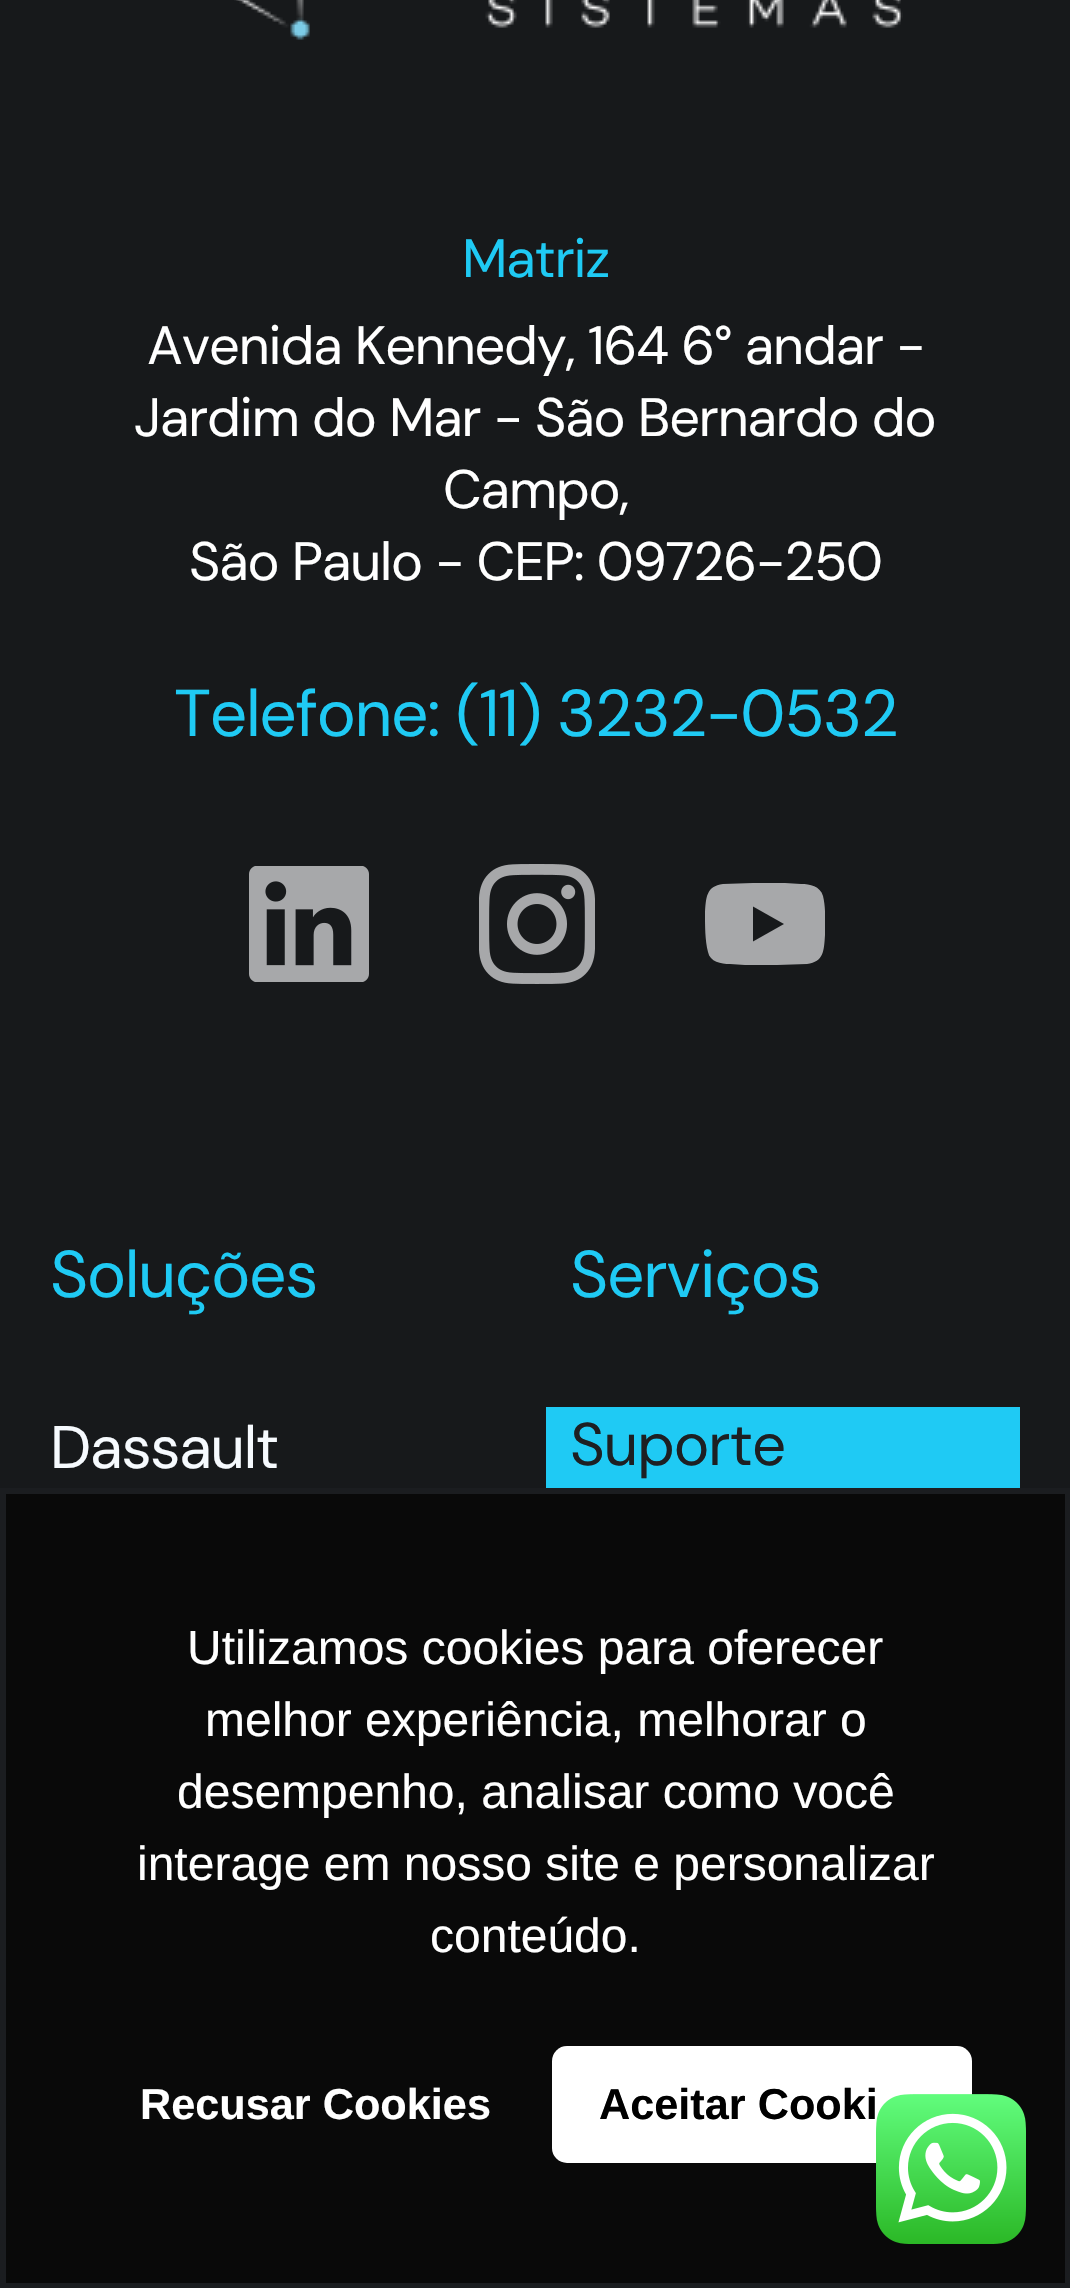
void draw(SkCanvas* canvas) {
    SkPaint paint;
    paint.setAntiAlias(true);
    auto face = [&](const char* family, int weight, float size, bool italic = false) {
        SkFontStyle style(weight, SkFontStyle::kNormal_Width,
            italic ? SkFontStyle::kItalic_Slant : SkFontStyle::kUpright_Slant);
        SkFont result(fontMgr->matchFamilyStyle(family, style), size);
        result.setSubpixel(true);
        return result;
    };
    auto write = [&](const char* s, float x, float y, const SkFont& font, SkColor color) {
        SkPaint ink(SkColor4f::FromColor(color));
        ink.setAntiAlias(true);
        canvas->drawString(s, x, y, font, ink);
    };
    auto writeSpaced = [&](const char* s, float x, float y, const SkFont& font, const SkPaint& ink, float letter, float word) {
        std::vector<SkGlyphID> glyphs(font.countText(s, strlen(s), SkTextEncoding::kUTF8));
        std::vector<float> xs(glyphs.size());
        font.textToGlyphs(s, strlen(s), SkTextEncoding::kUTF8, glyphs);
        font.getXPos(glyphs, xs, x);
        float extra = 0;
        for (size_t i = 0; i < glyphs.size(); i++) {
            xs[i] += extra;
            extra += letter + word * (glyphs[i] == font.unicharToGlyph(' '));
        }
        canvas->drawTextBlob(SkTextBlob::MakeFromPosHGlyphs(glyphs, xs, y, font), 0, 0, ink);
    };
    auto block = [&](float x, float y, float w, float h, SkColor color) {
        SkPaint ink(SkColor4f::FromColor(color));
        ink.setAntiAlias(true);
        canvas->drawRect(SkRect::MakeXYWH(x, y, w, h), ink);
    };
    auto card = [&](float x, float y, float w, float h, float radius, SkColor color) {
        SkPaint ink(SkColor4f::FromColor(color));
        ink.setAntiAlias(true);
        canvas->drawRoundRect(SkRect::MakeXYWH(x, y, w, h), radius, radius, ink);
    };
    auto paste = [&](const char* path, float x, float y, float w, float h) {
        auto image = SkImages::DeferredFromEncodedData(SkData::MakeFromFileName(path));
        canvas->drawImageRect(image, SkRect::MakeXYWH(x, y, w, h), SkSamplingOptions());
    };
    canvas->clear(SkColorSetRGB(23, 25, 27));
    paste("pic1.png", 234, 0, 669, 40);
    auto kFont1 = face("DM Sans", 400, 54);
    paint.setColor(SkColorSetRGB(31, 202, 244));
    writeSpaced("Matriz", 462, 277, kFont1, paint, -1.1f, 0);
    paint.setColor(SK_ColorWHITE);
    writeSpaced("Avenida Kennedy, 164 6° andar -", 147, 364, kFont1, paint, -1.1f, 0);
    writeSpaced("Jardim do Mar - São Bernardo do", 134, 436, kFont1, paint, -1.1f, 0);
    writeSpaced("Campo,", 443, 508, kFont1, paint, -1.1f, 0);
    writeSpaced("São Paulo - CEP: 09726-250", 189, 580, kFont1, paint, -1.1f, 0);
    auto kFont2 = face("DM Sans", 400, 66);
    paint.setColor(SkColorSetRGB(31, 202, 244));
    writeSpaced("Telefone: (11) 3232-0532", 174, 736, kFont2, paint, -1.3f, 0);
    paste("pic2.png", 249, 866, 120, 116);
    paste("pic3.png", 479, 864, 116, 120);
    canvas->save();
    canvas->clipRect(SkRect::MakeXYWH(705, 865, 120, 118));
    paint.setColor(SkColorSetRGB(167, 168, 170));
    canvas->drawPath(SkPathBuilder().moveTo(823, 896).cubicTo(820, 886, 810, 884, 801, 884).lineTo(785, 883).lineTo(753, 883).lineTo(723, 884).cubicTo(706, 886, 706, 898, 705, 913).cubicTo(705, 926, 705, 940, 708, 952).cubicTo(710, 962, 721, 964, 730, 964).lineTo(745, 965).lineTo(777, 965).lineTo(807, 964).cubicTo(824, 962, 824, 950, 825, 935).cubicTo(825, 922, 826, 908, 823, 896).close().detach(), paint);
    canvas->restore();
    paint.setColor(SkColorSetRGB(23, 25, 27));
    canvas->drawPath(SkPathBuilder().moveTo(753, 941.5f).lineTo(753, 906.5f).lineTo(784, 924).close().detach(), paint);
    paint.setColor(SkColorSetRGB(31, 202, 244));
    writeSpaced("Soluções", 50, 1297, kFont2, paint, -1.3f, 0);
    auto kFont3 = face("DM Sans", 400, 60);
    paint.setColor(SkColorSetRGB(246, 250, 254));
    writeSpaced("Dassault", 50, 1468, kFont3, paint, -1.25f, 0);
    paint.setColor(SkColorSetRGB(31, 202, 244));
    writeSpaced("Serviços", 570, 1297, kFont2, paint, -1.3f, 0);
    block(546, 1407, 474, 81, SkColorSetRGB(31, 202, 244));
    paint.setColor(SkColorSetRGB(29, 32, 35));
    writeSpaced("Suporte", 570, 1465, kFont3, paint, -1, 0);
    paint.setColor(SkColorSetRGB(9, 9, 9));
    canvas->drawRect(SkRect::MakeXYWH(3, 1491, 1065, 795), paint);
    paint.setStyle(SkPaint::kStroke_Style);
    paint.setStrokeWidth(6);
    paint.setColor(SkColorSetRGB(27, 29, 32));
    canvas->drawRect(SkRect::MakeXYWH(3, 1491, 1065, 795), paint);
    auto kFont4 = face("Liberation Sans", 400, 48);
    write("Utilizamos cookies para oferecer", 187, 1664, kFont4, SK_ColorWHITE);
    write("melhor experiência, melhorar o", 205, 1736, kFont4, SK_ColorWHITE);
    write("desempenho, analisar como você", 177, 1808, kFont4, SK_ColorWHITE);
    write("interage em nosso site e personalizar", 137, 1880, kFont4, SK_ColorWHITE);
    write("conteúdo.", 430, 1952, kFont4, SK_ColorWHITE);
    auto kFont5 = face("Liberation Sans", 700, 43.25f);
    write("Recusar Cookies", 140, 2119, kFont5, SK_ColorWHITE);
    card(552, 2046, 420, 117, 15, SK_ColorWHITE);
    write("Aceitar Cooki", 599, 2119, kFont5, SK_ColorBLACK);
    paste("pic4.png", 876, 2094, 150, 150);
}
